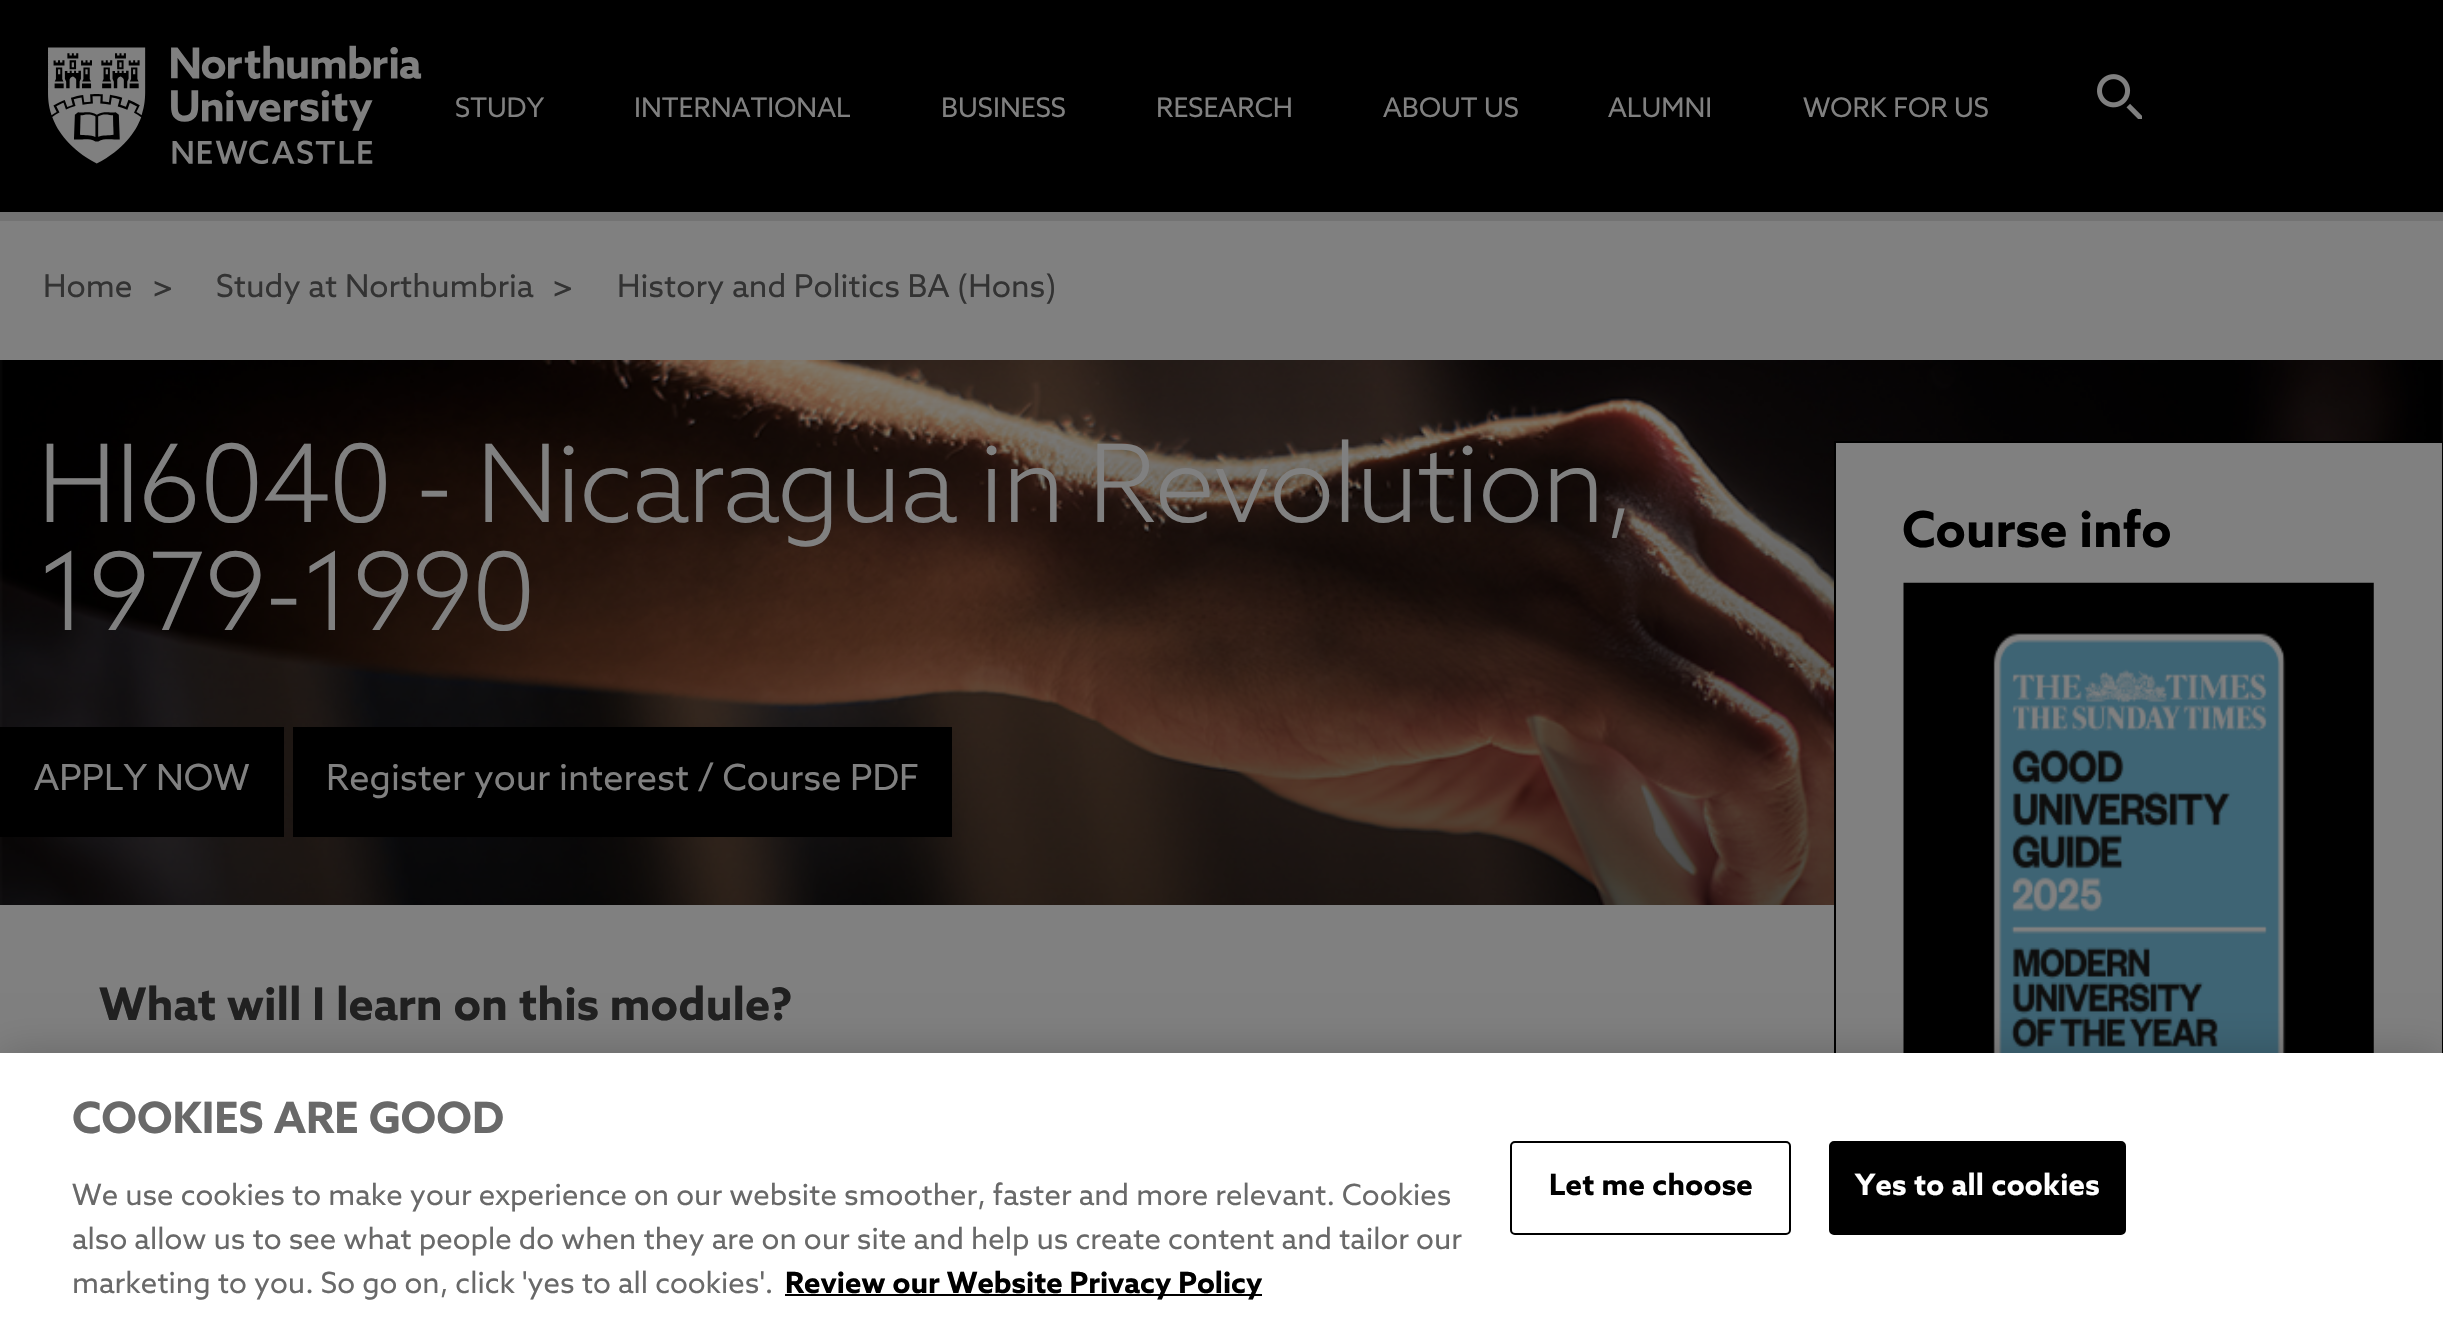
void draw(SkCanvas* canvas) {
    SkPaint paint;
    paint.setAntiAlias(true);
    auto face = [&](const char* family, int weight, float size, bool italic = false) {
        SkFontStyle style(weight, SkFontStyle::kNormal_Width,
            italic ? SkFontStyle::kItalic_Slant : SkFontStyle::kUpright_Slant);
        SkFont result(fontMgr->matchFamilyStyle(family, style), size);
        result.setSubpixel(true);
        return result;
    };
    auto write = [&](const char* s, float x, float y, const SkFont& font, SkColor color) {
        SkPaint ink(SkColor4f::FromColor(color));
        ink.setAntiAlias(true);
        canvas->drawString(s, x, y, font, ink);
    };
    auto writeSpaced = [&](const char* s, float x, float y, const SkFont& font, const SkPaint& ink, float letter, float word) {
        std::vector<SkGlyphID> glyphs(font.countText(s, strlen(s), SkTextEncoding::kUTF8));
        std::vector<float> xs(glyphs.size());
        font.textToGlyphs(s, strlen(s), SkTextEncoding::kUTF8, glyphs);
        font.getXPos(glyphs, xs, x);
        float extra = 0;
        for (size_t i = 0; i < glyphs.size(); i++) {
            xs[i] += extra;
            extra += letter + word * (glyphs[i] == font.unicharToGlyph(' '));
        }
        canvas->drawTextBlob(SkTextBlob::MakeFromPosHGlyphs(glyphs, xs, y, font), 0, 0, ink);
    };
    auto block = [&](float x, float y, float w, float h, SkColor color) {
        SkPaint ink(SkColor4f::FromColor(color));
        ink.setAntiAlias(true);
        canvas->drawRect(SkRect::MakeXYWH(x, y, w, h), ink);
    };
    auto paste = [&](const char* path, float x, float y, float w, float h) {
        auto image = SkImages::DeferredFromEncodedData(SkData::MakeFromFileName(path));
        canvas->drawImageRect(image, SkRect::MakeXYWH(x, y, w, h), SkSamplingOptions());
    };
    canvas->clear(SkColorSetRGB(128, 128, 128));
    block(0, 0, 2443, 212, SK_ColorBLACK);
    paste("pic1.png", 48, 45, 374, 119);
    auto kFont1 = face("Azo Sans", 400, 27);
    write("STUDY", 455, 117, kFont1, SkColorSetRGB(128, 128, 128));
    write("INTERNATIONAL", 634, 117, kFont1, SkColorSetRGB(128, 128, 128));
    write("BUSINESS", 941, 117, kFont1, SkColorSetRGB(128, 128, 128));
    write("RESEARCH", 1156, 117, kFont1, SkColorSetRGB(128, 128, 128));
    write("ABOUT US", 1383, 117, kFont1, SkColorSetRGB(128, 128, 128));
    write("ALUMNI", 1608, 117, kFont1, SkColorSetRGB(128, 128, 128));
    write("WORK FOR US", 1803, 117, kFont1, SkColorSetRGB(128, 128, 128));
    paste("pic2.png", 2097, 74, 45, 45);
    block(0, 212, 2443, 9, SkColorSetRGB(115, 115, 115));
    auto kFont2 = face("Azo Sans", 400, 31.5f);
    write("Home", 43, 297, kFont2, SkColorSetRGB(51, 51, 51));
    write(">", 152, 297, kFont2, SkColorSetRGB(51, 51, 51));
    write("Study at Northumbria", 216, 297, kFont2, SkColorSetRGB(51, 51, 51));
    write(">", 552, 297, kFont2, SkColorSetRGB(51, 51, 51));
    write("History and Politics BA (Hons)", 617, 297, kFont2, SkColorSetRGB(51, 51, 51));
    paste("pic3.png", 0, 360, 2443, 545);
    auto kFont3 = face("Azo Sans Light", 300, 108);
    paint.setColor(SkColorSetRGB(128, 128, 128));
    writeSpaced("HI6040 - Nicaragua in Revolution,", 37, 522, kFont3, paint, -2.25f, 0);
    writeSpaced("1979-1990", 37, 630, kFont3, paint, -2.25f, 0);
    block(0, 727, 284, 110, SK_ColorBLACK);
    auto kFont4 = face("Azo Sans", 400, 36);
    write("APPLY NOW", 34, 790, kFont4, SkColorSetRGB(128, 128, 128));
    block(293, 727, 659, 110, SK_ColorBLACK);
    write("Register your interest / Course PDF", 326, 790, kFont4, SkColorSetRGB(128, 128, 128));
    auto kFont5 = face("Azo Sans", 700, 45);
    write("What will I learn on this module?", 99, 1020, kFont5, SkColorSetRGB(32, 32, 32));
    block(1836, 443, 606, 462, SkColorSetRGB(128, 128, 128));
    paint.setStyle(SkPaint::kStroke_Style);
    paint.setStrokeWidth(2);
    paint.setColor(SK_ColorBLACK);
    canvas->drawRect(SkRect::MakeXYWH(1835, 442, 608, 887), paint);
    auto kFont6 = face("Azo Sans", 700, 49.5f);
    write("Course info", 1902, 547, kFont6, SK_ColorBLACK);
    paste("pic4.png", 1903, 582, 471, 471);
    paint.setStyle(SkPaint::kFill_Style);
    paint.setColor(SkColorSetARGB(51, 0, 0, 0));
    paint.setMaskFilter(SkMaskFilter::MakeBlur(kNormal_SkBlurStyle, 20));
    canvas->drawRect(SkRect::MakeXYWH(0, 1053, 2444, 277), paint);
    paint.setMaskFilter(nullptr);
    block(0, 1053, 2443, 275, SK_ColorWHITE);
    auto kFont7 = face("Azo Sans", 700, 43.25f);
    write("COOKIES ARE GOOD", 72, 1133, kFont7, SkColorSetRGB(105, 105, 105));
    auto kFont8 = face("Azo Sans", 400, 29.25f);
    write("We use cookies to make your experience on our website smoother, faster and more relevant. Cookies", 72, 1205, kFont8, SkColorSetRGB(105, 105, 105));
    write("also allow us to see what people do when they are on our site and help us create content and tailor our", 72, 1249, kFont8, SkColorSetRGB(105, 105, 105));
    write("marketing to you. So go on, click 'yes to all cookies'.", 72, 1293, kFont8, SkColorSetRGB(105, 105, 105));
    block(785, 1294, 477, 2, SK_ColorBLACK);
    auto kFont9 = face("Azo Sans", 700, 29.25f);
    write("Review our Website Privacy Policy", 785, 1293, kFont9, SK_ColorBLACK);
    paint.setStyle(SkPaint::kStroke_Style);
    paint.setColor(SK_ColorBLACK);
    canvas->drawRoundRect(SkRect::MakeXYWH(1511, 1142, 279, 92), 4, 4, paint);
    paint.setStyle(SkPaint::kFill_Style);
    writeSpaced("Let me choose", 1549, 1195, kFont9, paint, 0.25f, 0);
    canvas->drawRoundRect(SkRect::MakeXYWH(1830, 1142, 295, 92), 4, 4, paint);
    paint.setStyle(SkPaint::kStroke_Style);
    canvas->drawRoundRect(SkRect::MakeXYWH(1830, 1142, 295, 92), 4, 4, paint);
    paint.setStyle(SkPaint::kFill_Style);
    paint.setColor(SK_ColorWHITE);
    writeSpaced("Yes to all cookies", 1855, 1195, kFont9, paint, 0.25f, 0);
}
